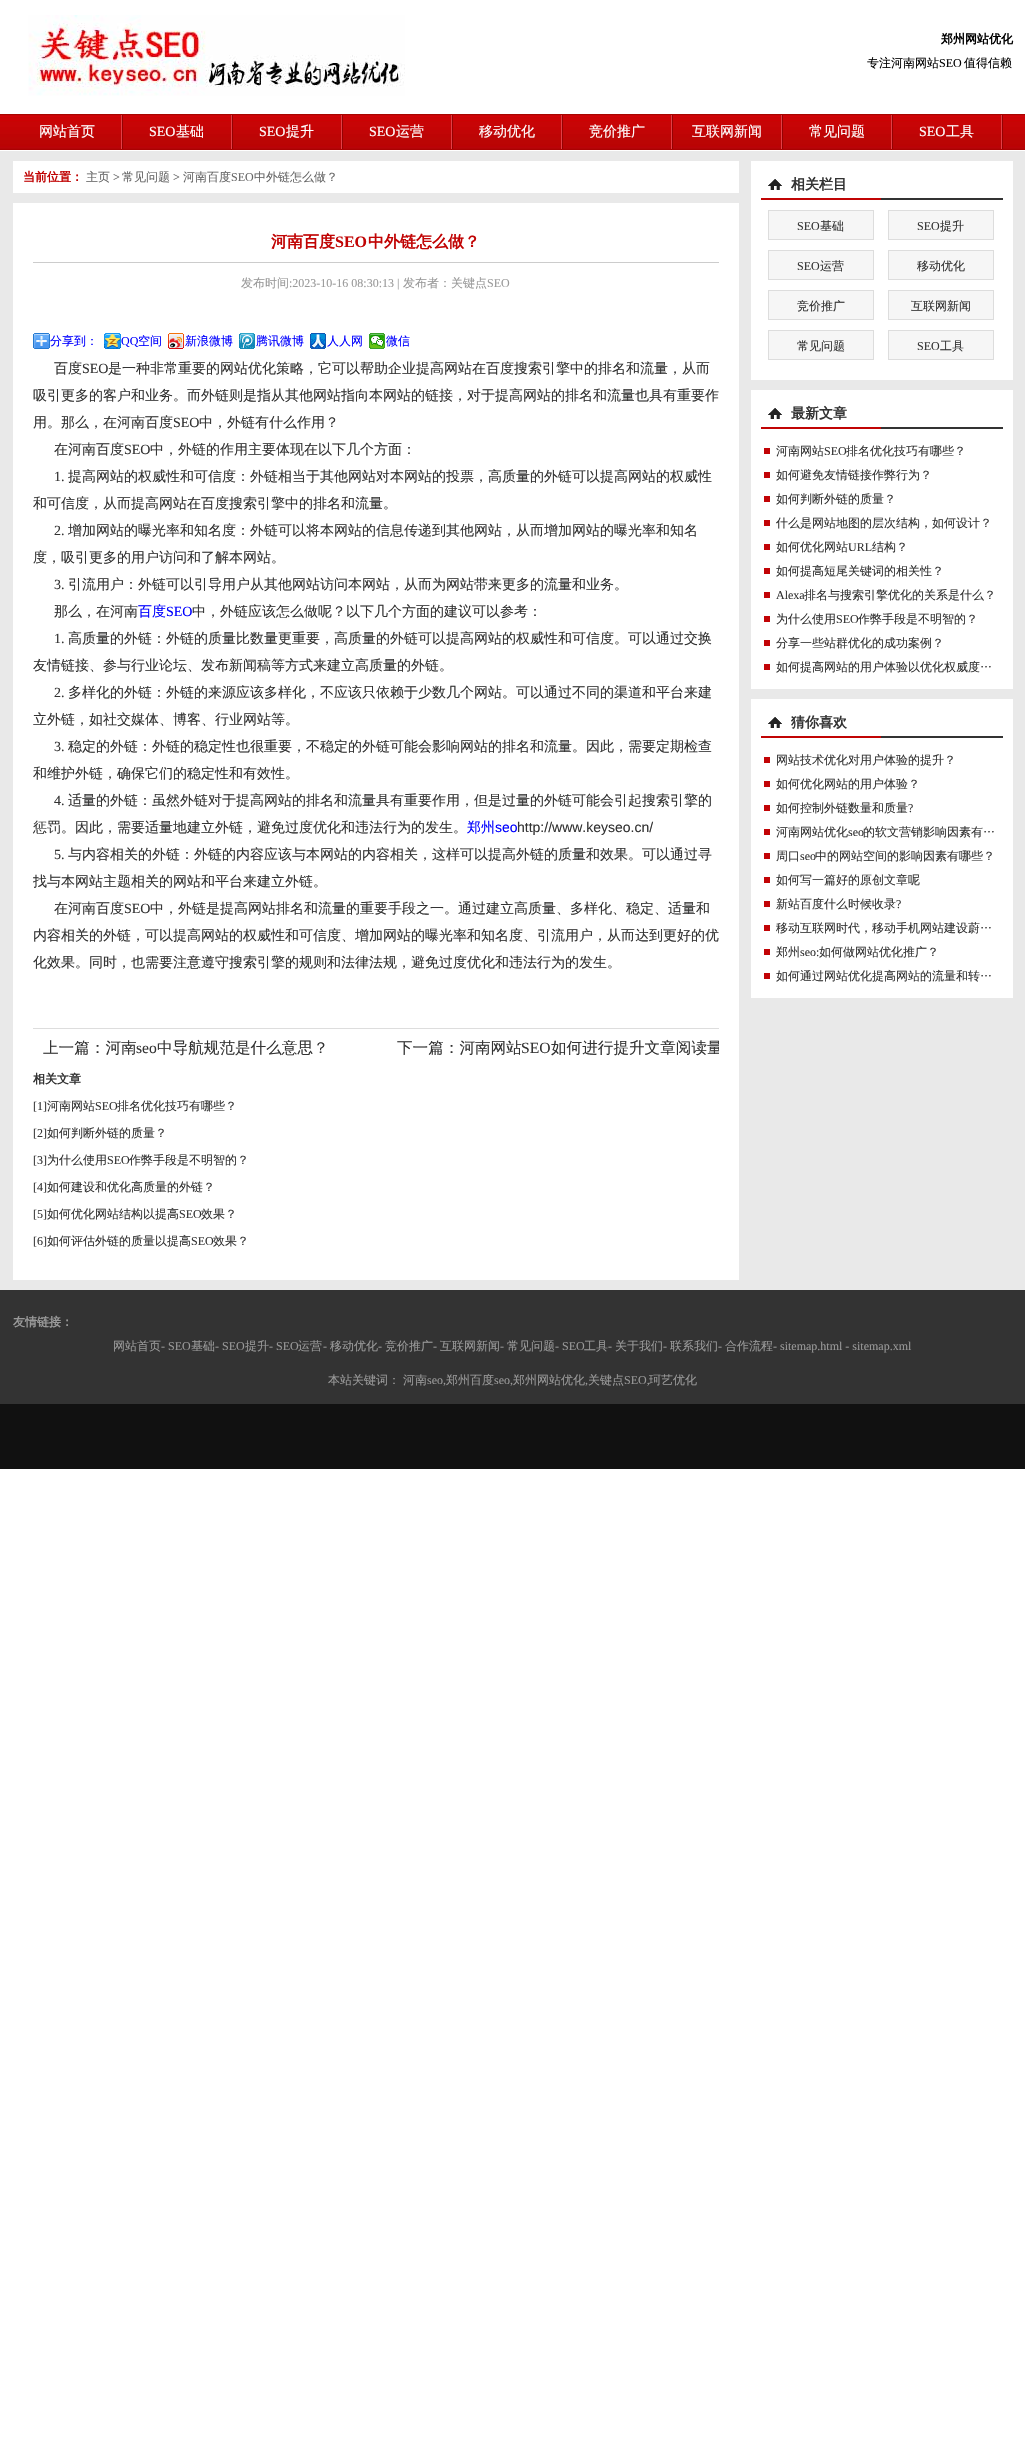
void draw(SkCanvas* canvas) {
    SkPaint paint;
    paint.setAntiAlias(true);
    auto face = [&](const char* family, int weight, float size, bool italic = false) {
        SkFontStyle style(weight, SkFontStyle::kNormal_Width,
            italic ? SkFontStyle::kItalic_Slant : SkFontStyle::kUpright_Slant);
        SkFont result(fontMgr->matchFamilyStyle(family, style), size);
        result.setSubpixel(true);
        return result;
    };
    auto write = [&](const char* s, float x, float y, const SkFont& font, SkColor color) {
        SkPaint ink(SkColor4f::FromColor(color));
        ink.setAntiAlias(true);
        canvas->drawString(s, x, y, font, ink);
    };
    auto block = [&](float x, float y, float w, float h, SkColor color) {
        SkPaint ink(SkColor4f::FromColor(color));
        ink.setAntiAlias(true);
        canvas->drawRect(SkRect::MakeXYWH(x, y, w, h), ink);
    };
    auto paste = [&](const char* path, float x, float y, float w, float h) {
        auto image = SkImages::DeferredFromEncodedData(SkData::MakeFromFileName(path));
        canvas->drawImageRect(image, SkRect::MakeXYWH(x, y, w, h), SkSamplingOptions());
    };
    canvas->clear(SK_ColorWHITE);
    paste("pic1.png", 28, 15, 377, 81);
    auto kFont1 = face("WenQuanYi Zen Hei", 700, 12);
    write("郑州网站优化", 941, 43, kFont1, SK_ColorBLACK);
    auto kFont2 = face("WenQuanYi Zen Hei", 500, 12);
    write("专注河南网站", 867, 67, kFont2, SK_ColorBLACK);
    auto kFont3 = face("Liberation Serif", 400, 12);
    write("SEO", 939, 67, kFont3, SK_ColorBLACK);
    write("值得信赖", 964, 67, kFont2, SK_ColorBLACK);
    paste("pic2.png", 0, 114, 1025, 36);
    paste("pic3.png", 121, 115, 2, 34);
    auto kFont4 = face("WenQuanYi Zen Hei", 500, 14);
    write("网站首页", 39, 136, kFont4, SK_ColorWHITE);
    paste("pic3.png", 231, 115, 2, 34);
    auto kFont5 = face("Liberation Serif", 400, 14);
    write("SEO", 149, 136, kFont5, SK_ColorWHITE);
    write("基础", 176, 136, kFont4, SK_ColorWHITE);
    paste("pic3.png", 341, 115, 2, 34);
    write("SEO", 259, 136, kFont5, SK_ColorWHITE);
    write("提升", 286, 136, kFont4, SK_ColorWHITE);
    paste("pic3.png", 451, 115, 2, 34);
    write("SEO", 369, 136, kFont5, SK_ColorWHITE);
    write("运营", 396, 136, kFont4, SK_ColorWHITE);
    paste("pic3.png", 561, 115, 2, 34);
    write("移动优化", 479, 136, kFont4, SK_ColorWHITE);
    paste("pic3.png", 671, 115, 2, 34);
    write("竞价推广", 589, 136, kFont4, SK_ColorWHITE);
    paste("pic3.png", 781, 115, 2, 34);
    write("互联网新闻", 692, 136, kFont4, SK_ColorWHITE);
    paste("pic3.png", 891, 115, 2, 34);
    write("常见问题", 809, 136, kFont4, SK_ColorWHITE);
    paste("pic3.png", 1001, 115, 2, 34);
    write("SEO", 919, 136, kFont5, SK_ColorWHITE);
    write("工具", 946, 136, kFont4, SK_ColorWHITE);
    block(0, 151, 1025, 1139, SkColorSetRGB(233, 233, 233));
    block(13, 161, 726, 32, SK_ColorWHITE);
    write("当前位置：", 23, 181, kFont1, SkColorSetRGB(193, 4, 4));
    write("主页", 86, 181, kFont2, SkColorSetRGB(102, 102, 102));
    write(">", 113, 181, kFont3, SkColorSetRGB(102, 102, 102));
    write("常见问题", 122, 181, kFont2, SkColorSetRGB(102, 102, 102));
    write(">", 173, 181, kFont3, SkColorSetRGB(102, 102, 102));
    write("河南百度", 183, 181, kFont2, SkColorSetRGB(102, 102, 102));
    write("SEO", 231, 181, kFont3, SkColorSetRGB(102, 102, 102));
    write("中外链怎么做？", 254, 181, kFont2, SkColorSetRGB(102, 102, 102));
    block(13, 203, 726, 1077, SK_ColorWHITE);
    block(33, 262, 686, 1, SkColorSetRGB(204, 204, 204));
    auto kFont6 = face("WenQuanYi Zen Hei", 700, 16);
    write("河南百度", 271, 247, kFont6, SkColorSetRGB(193, 4, 4));
    auto kFont7 = face("Liberation Serif", 700, 16);
    write("SEO", 335, 247, kFont7, SkColorSetRGB(193, 4, 4));
    write("中外链怎么做？", 368, 247, kFont6, SkColorSetRGB(193, 4, 4));
    write("发布时间", 241, 287, kFont2, SkColorSetRGB(153, 153, 153));
    write(":2023-10-16 08:30:13 |", 289, 287, kFont3, SkColorSetRGB(153, 153, 153));
    write("发布者：关键点", 403, 287, kFont2, SkColorSetRGB(153, 153, 153));
    write("SEO", 487, 287, kFont3, SkColorSetRGB(153, 153, 153));
    paste("pic4.png", 33, 333, 17, 16);
    write("分享到：", 50, 345, kFont2, SkColorSetRGB(0, 0, 255));
    paste("pic5.png", 104, 333, 17, 16);
    write("QQ", 121, 345, kFont3, SkColorSetRGB(0, 0, 255));
    write("空间", 138, 345, kFont2, SkColorSetRGB(0, 0, 255));
    paste("pic6.png", 168, 333, 16, 16);
    write("新浪微博", 185, 345, kFont2, SkColorSetRGB(0, 0, 255));
    paste("pic7.png", 239, 333, 16, 16);
    write("腾讯微博", 256, 345, kFont2, SkColorSetRGB(0, 0, 255));
    paste("pic8.png", 310, 333, 16, 16);
    write("人人网", 327, 345, kFont2, SkColorSetRGB(0, 0, 255));
    paste("pic9.png", 369, 333, 16, 16);
    write("微信", 386, 345, kFont2, SkColorSetRGB(0, 0, 255));
    write("百度", 54, 373, kFont4, SkColorSetRGB(51, 51, 51));
    write("SEO", 82, 373, kFont5, SkColorSetRGB(51, 51, 51));
    write("是一种非常重要的网站优化策略，它可以帮助企业提高网站在百度搜索引擎中的排名和流量，从而", 108, 373, kFont4, SkColorSetRGB(51, 51, 51));
    write("吸引更多的客户和业务。而外链则是指从其他网站指向本网站的链接，对于提高网站的排名和流量也具有重要作", 33, 400, kFont4, SkColorSetRGB(51, 51, 51));
    write("用。那么，在河南百度", 33, 427, kFont4, SkColorSetRGB(51, 51, 51));
    write("SEO", 173, 427, kFont5, SkColorSetRGB(51, 51, 51));
    write("中，外链有什么作用？", 199, 427, kFont4, SkColorSetRGB(51, 51, 51));
    write("在河南百度", 54, 454, kFont4, SkColorSetRGB(51, 51, 51));
    write("SEO", 124, 454, kFont5, SkColorSetRGB(51, 51, 51));
    write("中，外链的作用主要体现在以下几个方面：", 150, 454, kFont4, SkColorSetRGB(51, 51, 51));
    write("1.", 54, 481, kFont5, SkColorSetRGB(51, 51, 51));
    write("提高网站的权威性和可信度：外链相当于其他网站对本网站的投票，高质量的外链可以提高网站的权威性", 68, 481, kFont4, SkColorSetRGB(51, 51, 51));
    write("和可信度，从而提高网站在百度搜索引擎中的排名和流量。", 33, 508, kFont4, SkColorSetRGB(51, 51, 51));
    write("2.", 54, 535, kFont5, SkColorSetRGB(51, 51, 51));
    write("增加网站的曝光率和知名度：外链可以将本网站的信息传递到其他网站，从而增加网站的曝光率和知名", 68, 535, kFont4, SkColorSetRGB(51, 51, 51));
    write("度，吸引更多的用户访问和了解本网站。", 33, 562, kFont4, SkColorSetRGB(51, 51, 51));
    write("3.", 54, 589, kFont5, SkColorSetRGB(51, 51, 51));
    write("引流用户：外链可以引导用户从其他网站访问本网站，从而为网站带来更多的流量和业务。", 68, 589, kFont4, SkColorSetRGB(51, 51, 51));
    write("那么，在河南", 54, 616, kFont4, SkColorSetRGB(51, 51, 51));
    write("百度", 138, 616, kFont4, SkColorSetRGB(0, 0, 255));
    write("SEO", 166, 616, kFont5, SkColorSetRGB(0, 0, 255));
    write("中，外链应该怎么做呢？以下几个方面的建议可以参考：", 192, 616, kFont4, SkColorSetRGB(51, 51, 51));
    write("1.", 54, 643, kFont5, SkColorSetRGB(51, 51, 51));
    write("高质量的外链：外链的质量比数量更重要，高质量的外链可以提高网站的权威性和可信度。可以通过交换", 68, 643, kFont4, SkColorSetRGB(51, 51, 51));
    write("友情链接、参与行业论坛、发布新闻稿等方式来建立高质量的外链。", 33, 670, kFont4, SkColorSetRGB(51, 51, 51));
    write("2.", 54, 697, kFont5, SkColorSetRGB(51, 51, 51));
    write("多样化的外链：外链的来源应该多样化，不应该只依赖于少数几个网站。可以通过不同的渠道和平台来建", 68, 697, kFont4, SkColorSetRGB(51, 51, 51));
    write("立外链，如社交媒体、博客、行业网站等。", 33, 724, kFont4, SkColorSetRGB(51, 51, 51));
    write("3.", 54, 751, kFont5, SkColorSetRGB(51, 51, 51));
    write("稳定的外链：外链的稳定性也很重要，不稳定的外链可能会影响网站的排名和流量。因此，需要定期检查", 68, 751, kFont4, SkColorSetRGB(51, 51, 51));
    write("和维护外链，确保它们的稳定性和有效性。", 33, 778, kFont4, SkColorSetRGB(51, 51, 51));
    write("4.", 54, 805, kFont5, SkColorSetRGB(51, 51, 51));
    write("适量的外链：虽然外链对于提高网站的排名和流量具有重要作用，但是过量的外链可能会引起搜索引擎的", 68, 805, kFont4, SkColorSetRGB(51, 51, 51));
    write("惩罚。因此，需要适量地建立外链，避免过度优化和违法行为的发生。", 33, 832, kFont4, SkColorSetRGB(51, 51, 51));
    write("郑州", 467, 832, kFont4, SkColorSetRGB(0, 0, 255));
    auto kFont8 = face("Liberation Sans", 400, 14);
    write("seo", 495, 832, kFont8, SkColorSetRGB(0, 0, 255));
    write("http://www.keyseo.cn/", 517, 832, kFont8, SkColorSetRGB(51, 51, 51));
    write("5.", 54, 859, kFont5, SkColorSetRGB(51, 51, 51));
    write("与内容相关的外链：外链的内容应该与本网站的内容相关，这样可以提高外链的质量和效果。可以通过寻", 68, 859, kFont4, SkColorSetRGB(51, 51, 51));
    canvas->save();
    canvas->clipRect(SkRect::MakeXYWH(33, 327, 686, 676));
    write("找与本网站主题相关的网站和平台来建立外链。", 33, 886, kFont4, SkColorSetRGB(51, 51, 51));
    canvas->restore();
    write("在河南百度", 54, 913, kFont4, SkColorSetRGB(51, 51, 51));
    write("SEO", 124, 913, kFont5, SkColorSetRGB(51, 51, 51));
    write("中，外链是提高网站排名和流量的重要手段之一。通过建立高质量、多样化、稳定、适量和", 150, 913, kFont4, SkColorSetRGB(51, 51, 51));
    write("内容相关的外链，可以提高网站的权威性和可信度、增加网站的曝光率和知名度、引流用户，从而达到更好的优", 33, 940, kFont4, SkColorSetRGB(51, 51, 51));
    write("化效果。同时，也需要注意遵守搜索引擎的规则和法律法规，避免过度优化和违法行为的发生。", 33, 967, kFont4, SkColorSetRGB(51, 51, 51));
    block(33, 1028, 686, 1, SkColorSetRGB(221, 221, 221));
    auto kFont9 = face("WenQuanYi Zen Hei", 500, 15.6f);
    write("上一篇：河南", 43, 1053, kFont9, SkColorSetRGB(51, 51, 51));
    auto kFont10 = face("Liberation Serif", 400, 15.6f);
    write("seo", 136, 1053, kFont10, SkColorSetRGB(51, 51, 51));
    write("中导航规范是什么意思？", 157, 1053, kFont9, SkColorSetRGB(51, 51, 51));
    write("下一篇：河南网站", 397, 1053, kFont9, SkColorSetRGB(51, 51, 51));
    write("SEO", 521, 1053, kFont10, SkColorSetRGB(51, 51, 51));
    canvas->save();
    canvas->clipRect(SkRect::MakeXYWH(397, 1034, 322, 27));
    write("如何进行提升文章阅读量", 551, 1053, kFont9, SkColorSetRGB(51, 51, 51));
    canvas->restore();
    write("相关文章", 33, 1083, kFont1, SkColorSetRGB(51, 51, 51));
    write("[1]", 33, 1110, kFont3, SkColorSetRGB(51, 51, 51));
    write("河南网站", 47, 1110, kFont2, SkColorSetRGB(51, 51, 51));
    write("SEO", 95, 1110, kFont3, SkColorSetRGB(51, 51, 51));
    write("排名优化技巧有哪些？", 117, 1110, kFont2, SkColorSetRGB(51, 51, 51));
    write("[2]", 33, 1137, kFont3, SkColorSetRGB(51, 51, 51));
    write("如何判断外链的质量？", 47, 1137, kFont2, SkColorSetRGB(51, 51, 51));
    write("[3]", 33, 1164, kFont3, SkColorSetRGB(51, 51, 51));
    write("为什么使用", 47, 1164, kFont2, SkColorSetRGB(51, 51, 51));
    write("SEO", 107, 1164, kFont3, SkColorSetRGB(51, 51, 51));
    write("作弊手段是不明智的？", 129, 1164, kFont2, SkColorSetRGB(51, 51, 51));
    write("[4]", 33, 1191, kFont3, SkColorSetRGB(51, 51, 51));
    write("如何建设和优化高质量的外链？", 47, 1191, kFont2, SkColorSetRGB(51, 51, 51));
    write("[5]", 33, 1218, kFont3, SkColorSetRGB(51, 51, 51));
    write("如何优化网站结构以提高", 47, 1218, kFont2, SkColorSetRGB(51, 51, 51));
    write("SEO", 179, 1218, kFont3, SkColorSetRGB(51, 51, 51));
    write("效果？", 201, 1218, kFont2, SkColorSetRGB(51, 51, 51));
    write("[6]", 33, 1245, kFont3, SkColorSetRGB(51, 51, 51));
    write("如何评估外链的质量以提高", 47, 1245, kFont2, SkColorSetRGB(51, 51, 51));
    write("SEO", 191, 1245, kFont3, SkColorSetRGB(51, 51, 51));
    write("效果？", 213, 1245, kFont2, SkColorSetRGB(51, 51, 51));
    block(751, 161, 262, 219, SK_ColorWHITE);
    block(881, 198, 122, 2, SkColorSetRGB(51, 51, 51));
    paste("pic10.png", 768, 179, 14, 11);
    block(761, 198, 120, 2, SkColorSetRGB(193, 4, 4));
    auto kFont11 = face("WenQuanYi Zen Hei", 700, 14);
    write("相关栏目", 791, 189, kFont11, SkColorSetRGB(51, 51, 51));
    paint.setColor(SkColorSetRGB(246, 246, 246));
    canvas->drawRect(SkRect::MakeXYWH(768.5f, 210.5f, 105, 29), paint);
    paint.setStyle(SkPaint::kStroke_Style);
    paint.setStrokeWidth(1);
    paint.setColor(SkColorSetRGB(221, 221, 221));
    canvas->drawRect(SkRect::MakeXYWH(768.5f, 210.5f, 105, 29), paint);
    write("SEO", 797, 230, kFont3, SkColorSetRGB(51, 51, 51));
    write("基础", 820, 230, kFont2, SkColorSetRGB(51, 51, 51));
    paint.setStyle(SkPaint::kFill_Style);
    paint.setColor(SkColorSetRGB(246, 246, 246));
    canvas->drawRect(SkRect::MakeXYWH(888.5f, 210.5f, 105, 29), paint);
    paint.setStyle(SkPaint::kStroke_Style);
    paint.setColor(SkColorSetRGB(221, 221, 221));
    canvas->drawRect(SkRect::MakeXYWH(888.5f, 210.5f, 105, 29), paint);
    write("SEO", 917, 230, kFont3, SkColorSetRGB(51, 51, 51));
    write("提升", 940, 230, kFont2, SkColorSetRGB(51, 51, 51));
    paint.setStyle(SkPaint::kFill_Style);
    paint.setColor(SkColorSetRGB(246, 246, 246));
    canvas->drawRect(SkRect::MakeXYWH(768.5f, 250.5f, 105, 29), paint);
    paint.setStyle(SkPaint::kStroke_Style);
    paint.setColor(SkColorSetRGB(221, 221, 221));
    canvas->drawRect(SkRect::MakeXYWH(768.5f, 250.5f, 105, 29), paint);
    write("SEO", 797, 270, kFont3, SkColorSetRGB(51, 51, 51));
    write("运营", 820, 270, kFont2, SkColorSetRGB(51, 51, 51));
    paint.setStyle(SkPaint::kFill_Style);
    paint.setColor(SkColorSetRGB(246, 246, 246));
    canvas->drawRect(SkRect::MakeXYWH(888.5f, 250.5f, 105, 29), paint);
    paint.setStyle(SkPaint::kStroke_Style);
    paint.setColor(SkColorSetRGB(221, 221, 221));
    canvas->drawRect(SkRect::MakeXYWH(888.5f, 250.5f, 105, 29), paint);
    write("移动优化", 917, 270, kFont2, SkColorSetRGB(51, 51, 51));
    paint.setStyle(SkPaint::kFill_Style);
    paint.setColor(SkColorSetRGB(246, 246, 246));
    canvas->drawRect(SkRect::MakeXYWH(768.5f, 290.5f, 105, 29), paint);
    paint.setStyle(SkPaint::kStroke_Style);
    paint.setColor(SkColorSetRGB(221, 221, 221));
    canvas->drawRect(SkRect::MakeXYWH(768.5f, 290.5f, 105, 29), paint);
    write("竞价推广", 797, 310, kFont2, SkColorSetRGB(51, 51, 51));
    paint.setStyle(SkPaint::kFill_Style);
    paint.setColor(SkColorSetRGB(246, 246, 246));
    canvas->drawRect(SkRect::MakeXYWH(888.5f, 290.5f, 105, 29), paint);
    paint.setStyle(SkPaint::kStroke_Style);
    paint.setColor(SkColorSetRGB(221, 221, 221));
    canvas->drawRect(SkRect::MakeXYWH(888.5f, 290.5f, 105, 29), paint);
    write("互联网新闻", 911, 310, kFont2, SkColorSetRGB(51, 51, 51));
    paint.setStyle(SkPaint::kFill_Style);
    paint.setColor(SkColorSetRGB(246, 246, 246));
    canvas->drawRect(SkRect::MakeXYWH(768.5f, 330.5f, 105, 29), paint);
    paint.setStyle(SkPaint::kStroke_Style);
    paint.setColor(SkColorSetRGB(221, 221, 221));
    canvas->drawRect(SkRect::MakeXYWH(768.5f, 330.5f, 105, 29), paint);
    write("常见问题", 797, 350, kFont2, SkColorSetRGB(51, 51, 51));
    paint.setStyle(SkPaint::kFill_Style);
    paint.setColor(SkColorSetRGB(246, 246, 246));
    canvas->drawRect(SkRect::MakeXYWH(888.5f, 330.5f, 105, 29), paint);
    paint.setStyle(SkPaint::kStroke_Style);
    paint.setColor(SkColorSetRGB(221, 221, 221));
    canvas->drawRect(SkRect::MakeXYWH(888.5f, 330.5f, 105, 29), paint);
    write("SEO", 917, 350, kFont3, SkColorSetRGB(51, 51, 51));
    write("工具", 940, 350, kFont2, SkColorSetRGB(51, 51, 51));
    block(751, 390, 262, 299, SK_ColorWHITE);
    block(881, 427, 122, 2, SkColorSetRGB(51, 51, 51));
    paste("pic10.png", 768, 408, 14, 11);
    block(761, 427, 120, 2, SkColorSetRGB(193, 4, 4));
    write("最新文章", 791, 418, kFont11, SkColorSetRGB(51, 51, 51));
    block(764, 448, 6, 6, SkColorSetRGB(194, 4, 6));
    write("河南网站", 776, 455, kFont2, SkColorSetRGB(51, 51, 51));
    write("SEO", 824, 455, kFont3, SkColorSetRGB(51, 51, 51));
    write("排名优化技巧有哪些？", 846, 455, kFont2, SkColorSetRGB(51, 51, 51));
    block(764, 472, 6, 6, SkColorSetRGB(194, 4, 6));
    write("如何避免友情链接作弊行为？", 776, 479, kFont2, SkColorSetRGB(51, 51, 51));
    block(764, 496, 6, 6, SkColorSetRGB(194, 4, 6));
    write("如何判断外链的质量？", 776, 503, kFont2, SkColorSetRGB(51, 51, 51));
    block(764, 520, 6, 6, SkColorSetRGB(194, 4, 6));
    write("什么是网站地图的层次结构，如何设计？", 776, 527, kFont2, SkColorSetRGB(51, 51, 51));
    block(764, 544, 6, 6, SkColorSetRGB(194, 4, 6));
    write("如何优化网站", 776, 551, kFont2, SkColorSetRGB(51, 51, 51));
    write("URL", 848, 551, kFont3, SkColorSetRGB(51, 51, 51));
    write("结构？", 872, 551, kFont2, SkColorSetRGB(51, 51, 51));
    block(764, 568, 6, 6, SkColorSetRGB(194, 4, 6));
    write("如何提高短尾关键词的相关性？", 776, 575, kFont2, SkColorSetRGB(51, 51, 51));
    block(764, 592, 6, 6, SkColorSetRGB(194, 4, 6));
    write("Alexa", 776, 599, kFont3, SkColorSetRGB(51, 51, 51));
    write("排名与搜索引擎优化的关系是什么？", 804, 599, kFont2, SkColorSetRGB(51, 51, 51));
    block(764, 616, 6, 6, SkColorSetRGB(194, 4, 6));
    write("为什么使用", 776, 623, kFont2, SkColorSetRGB(51, 51, 51));
    write("SEO", 836, 623, kFont3, SkColorSetRGB(51, 51, 51));
    write("作弊手段是不明智的？", 858, 623, kFont2, SkColorSetRGB(51, 51, 51));
    block(764, 640, 6, 6, SkColorSetRGB(194, 4, 6));
    write("分享一些站群优化的成功案例？", 776, 647, kFont2, SkColorSetRGB(51, 51, 51));
    block(764, 664, 6, 6, SkColorSetRGB(194, 4, 6));
    write("如何提高网站的用户体验以优化权威度…", 776, 671, kFont2, SkColorSetRGB(51, 51, 51));
    block(751, 699, 262, 299, SK_ColorWHITE);
    block(881, 736, 122, 2, SkColorSetRGB(51, 51, 51));
    paste("pic10.png", 768, 717, 14, 11);
    block(761, 736, 120, 2, SkColorSetRGB(193, 4, 4));
    write("猜你喜欢", 791, 727, kFont11, SkColorSetRGB(51, 51, 51));
    block(764, 757, 6, 6, SkColorSetRGB(194, 4, 6));
    write("网站技术优化对用户体验的提升？", 776, 764, kFont2, SkColorSetRGB(51, 51, 51));
    block(764, 781, 6, 6, SkColorSetRGB(194, 4, 6));
    write("如何优化网站的用户体验？", 776, 788, kFont2, SkColorSetRGB(51, 51, 51));
    block(764, 805, 6, 6, SkColorSetRGB(194, 4, 6));
    write("如何控制外链数量和质量", 776, 812, kFont2, SkColorSetRGB(51, 51, 51));
    write("?", 908, 812, kFont3, SkColorSetRGB(51, 51, 51));
    block(764, 829, 6, 6, SkColorSetRGB(194, 4, 6));
    write("河南网站优化", 776, 836, kFont2, SkColorSetRGB(51, 51, 51));
    write("seo", 848, 836, kFont3, SkColorSetRGB(51, 51, 51));
    write("的软文营销影响因素有…", 863, 836, kFont2, SkColorSetRGB(51, 51, 51));
    block(764, 853, 6, 6, SkColorSetRGB(194, 4, 6));
    write("周口", 776, 860, kFont2, SkColorSetRGB(51, 51, 51));
    write("seo", 800, 860, kFont3, SkColorSetRGB(51, 51, 51));
    write("中的网站空间的影响因素有哪些？", 815, 860, kFont2, SkColorSetRGB(51, 51, 51));
    block(764, 877, 6, 6, SkColorSetRGB(194, 4, 6));
    write("如何写一篇好的原创文章呢", 776, 884, kFont2, SkColorSetRGB(51, 51, 51));
    block(764, 901, 6, 6, SkColorSetRGB(194, 4, 6));
    write("新站百度什么时候收录", 776, 908, kFont2, SkColorSetRGB(51, 51, 51));
    write("?", 896, 908, kFont3, SkColorSetRGB(51, 51, 51));
    block(764, 925, 6, 6, SkColorSetRGB(194, 4, 6));
    write("移动互联网时代，移动手机网站建设蔚…", 776, 932, kFont2, SkColorSetRGB(51, 51, 51));
    block(764, 949, 6, 6, SkColorSetRGB(194, 4, 6));
    write("郑州", 776, 956, kFont2, SkColorSetRGB(51, 51, 51));
    write("seo:", 800, 956, kFont3, SkColorSetRGB(51, 51, 51));
    write("如何做网站优化推广？", 819, 956, kFont2, SkColorSetRGB(51, 51, 51));
    block(764, 973, 6, 6, SkColorSetRGB(194, 4, 6));
    write("如何通过网站优化提高网站的流量和转…", 776, 980, kFont2, SkColorSetRGB(51, 51, 51));
    block(0, 1290, 1025, 114, SkColorSetRGB(51, 51, 51));
    write("友情链接：", 13, 1326, kFont1, SkColorSetRGB(153, 153, 153));
    write("网站首页", 113, 1350, kFont2, SkColorSetRGB(153, 153, 153));
    write("- SEO", 161, 1350, kFont3, SkColorSetRGB(153, 153, 153));
    write("基础", 191, 1350, kFont2, SkColorSetRGB(153, 153, 153));
    write("- SEO", 215, 1350, kFont3, SkColorSetRGB(153, 153, 153));
    write("提升", 245, 1350, kFont2, SkColorSetRGB(153, 153, 153));
    write("- SEO", 269, 1350, kFont3, SkColorSetRGB(153, 153, 153));
    write("运营", 298, 1350, kFont2, SkColorSetRGB(153, 153, 153));
    write("-", 323, 1350, kFont3, SkColorSetRGB(153, 153, 153));
    write("移动优化", 330, 1350, kFont2, SkColorSetRGB(153, 153, 153));
    write("-", 378, 1350, kFont3, SkColorSetRGB(153, 153, 153));
    write("竞价推广", 385, 1350, kFont2, SkColorSetRGB(153, 153, 153));
    write("-", 433, 1350, kFont3, SkColorSetRGB(153, 153, 153));
    write("互联网新闻", 440, 1350, kFont2, SkColorSetRGB(153, 153, 153));
    write("-", 500, 1350, kFont3, SkColorSetRGB(153, 153, 153));
    write("常见问题", 507, 1350, kFont2, SkColorSetRGB(153, 153, 153));
    write("- SEO", 555, 1350, kFont3, SkColorSetRGB(153, 153, 153));
    write("工具", 584, 1350, kFont2, SkColorSetRGB(153, 153, 153));
    write("-", 608, 1350, kFont3, SkColorSetRGB(153, 153, 153));
    write("关于我们", 615, 1350, kFont2, SkColorSetRGB(153, 153, 153));
    write("-", 663, 1350, kFont3, SkColorSetRGB(153, 153, 153));
    write("联系我们", 670, 1350, kFont2, SkColorSetRGB(153, 153, 153));
    write("-", 718, 1350, kFont3, SkColorSetRGB(153, 153, 153));
    write("合作流程", 725, 1350, kFont2, SkColorSetRGB(153, 153, 153));
    write("- sitemap.html - sitemap.xml", 773, 1350, kFont3, SkColorSetRGB(153, 153, 153));
    write("本站关键词：", 328, 1384, kFont2, SkColorSetRGB(153, 153, 153));
    write("河南", 403, 1384, kFont2, SkColorSetRGB(153, 153, 153));
    write("seo,", 427, 1384, kFont3, SkColorSetRGB(153, 153, 153));
    write("郑州百度", 446, 1384, kFont2, SkColorSetRGB(153, 153, 153));
    write("seo,", 494, 1384, kFont3, SkColorSetRGB(153, 153, 153));
    write("郑州网站优化", 513, 1384, kFont2, SkColorSetRGB(153, 153, 153));
    write(",", 585, 1384, kFont3, SkColorSetRGB(153, 153, 153));
    write("关键点", 588, 1384, kFont2, SkColorSetRGB(153, 153, 153));
    write("SEO,", 624, 1384, kFont3, SkColorSetRGB(153, 153, 153));
    write("珂艺优化", 649, 1384, kFont2, SkColorSetRGB(153, 153, 153));
    block(0, 1404, 1025, 65, SkColorSetRGB(17, 17, 17));
}
